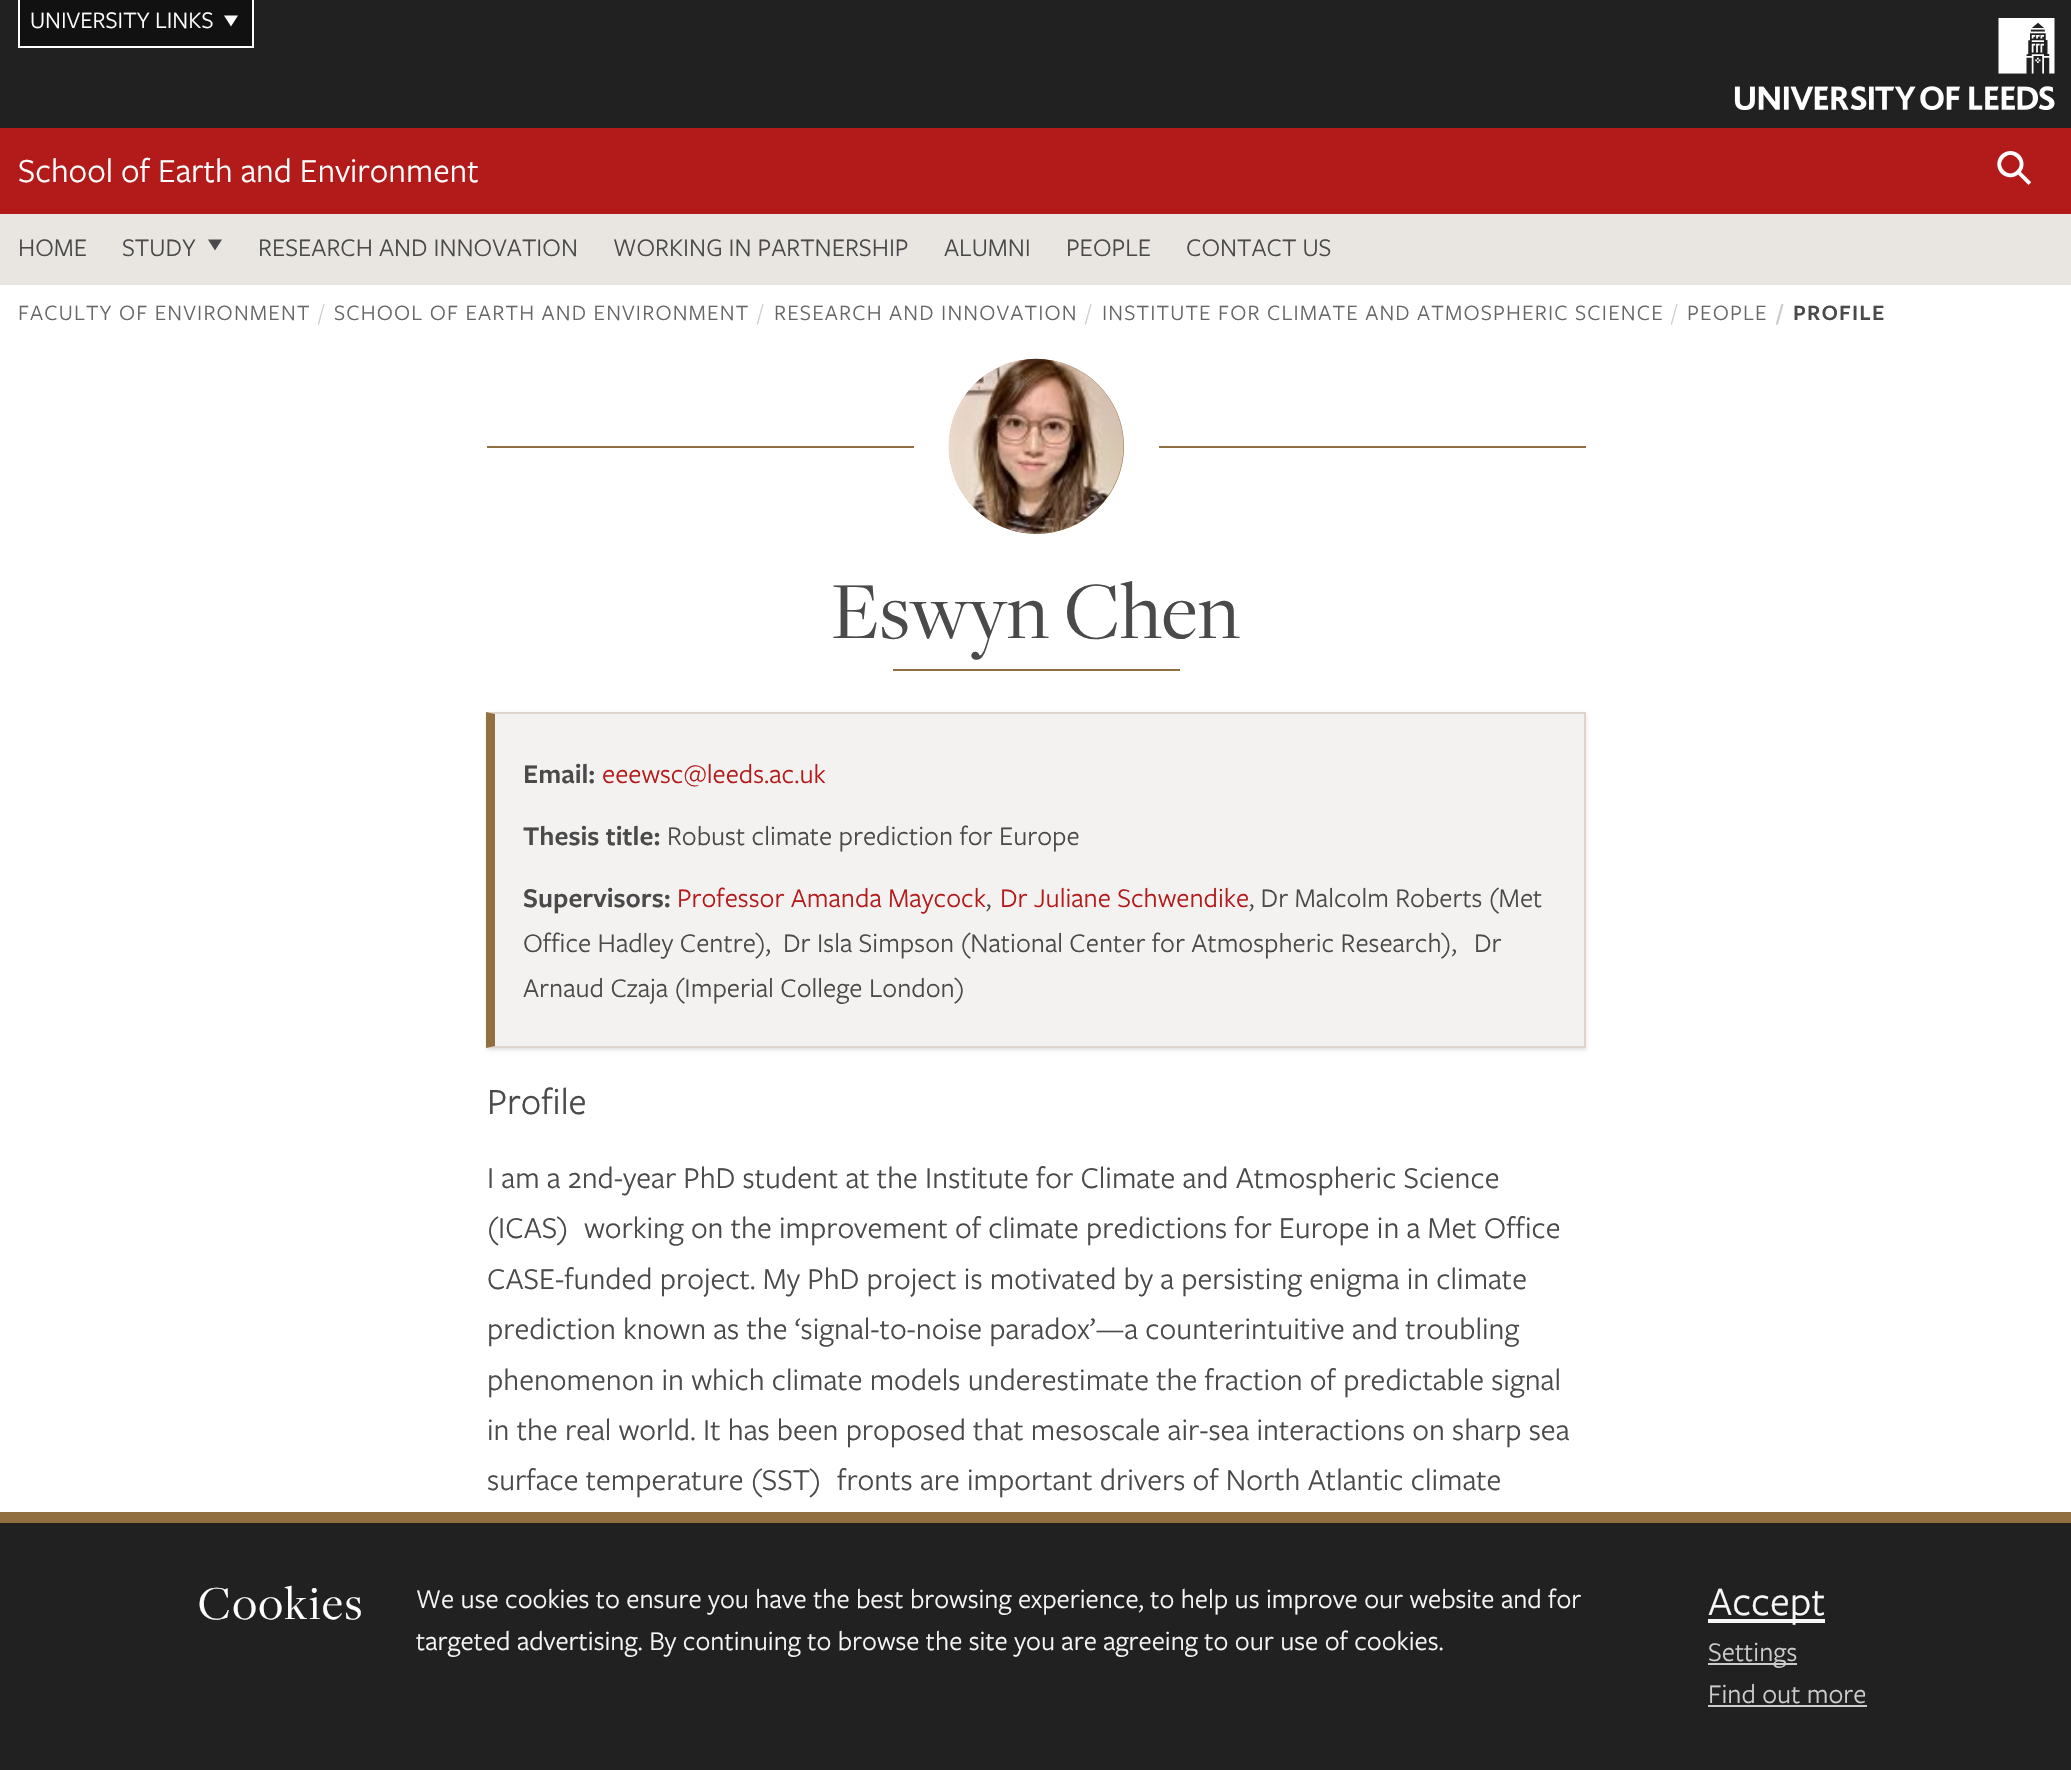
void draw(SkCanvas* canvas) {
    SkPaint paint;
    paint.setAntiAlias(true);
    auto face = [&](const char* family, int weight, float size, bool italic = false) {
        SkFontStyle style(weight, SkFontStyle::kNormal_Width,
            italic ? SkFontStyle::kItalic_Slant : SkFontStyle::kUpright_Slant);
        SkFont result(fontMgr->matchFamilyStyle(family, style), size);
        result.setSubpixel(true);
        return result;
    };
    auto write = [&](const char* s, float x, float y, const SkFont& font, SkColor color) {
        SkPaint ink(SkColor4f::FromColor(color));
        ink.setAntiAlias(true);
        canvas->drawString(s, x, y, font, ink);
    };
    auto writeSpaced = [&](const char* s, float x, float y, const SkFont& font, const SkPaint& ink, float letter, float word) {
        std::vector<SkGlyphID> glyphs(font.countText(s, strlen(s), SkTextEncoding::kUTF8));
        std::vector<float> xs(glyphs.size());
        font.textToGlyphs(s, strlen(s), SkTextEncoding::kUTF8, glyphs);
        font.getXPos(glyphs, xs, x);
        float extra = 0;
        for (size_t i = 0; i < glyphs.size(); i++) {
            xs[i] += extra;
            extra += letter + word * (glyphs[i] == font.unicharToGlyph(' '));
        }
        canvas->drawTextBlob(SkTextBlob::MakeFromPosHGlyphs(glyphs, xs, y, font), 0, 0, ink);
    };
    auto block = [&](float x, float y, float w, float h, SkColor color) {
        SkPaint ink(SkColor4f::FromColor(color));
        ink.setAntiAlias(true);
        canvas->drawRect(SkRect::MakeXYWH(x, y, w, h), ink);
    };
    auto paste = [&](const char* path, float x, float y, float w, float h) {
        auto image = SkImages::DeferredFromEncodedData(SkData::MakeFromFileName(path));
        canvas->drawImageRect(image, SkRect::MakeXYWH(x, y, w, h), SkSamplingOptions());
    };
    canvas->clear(SK_ColorWHITE);
    block(0, 0, 2071, 128, SkColorSetRGB(33, 33, 33));
    paste("pic1.png", 1734, 18, 321, 92);
    block(20, 0, 232, 46, SkColorSetRGB(17, 17, 17));
    block(252, 0, 2, 47, SK_ColorWHITE);
    block(18, 46, 236, 2, SK_ColorWHITE);
    block(18, 0, 2, 47, SK_ColorWHITE);
    auto kFont1 = face("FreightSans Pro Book", 400, 24.5f);
    write("UNIVERSITY LINKS", 30, 28, kFont1, SK_ColorWHITE);
    paint.setColor(SK_ColorWHITE);
    canvas->drawPath(SkPathBuilder().moveTo(238, 15.5f).lineTo(231, 26.5f).lineTo(224, 15.5f).close().detach(), paint);
    block(0, 128, 2071, 86, SkColorSetRGB(179, 27, 27));
    auto kFont2 = face("FreightSans Pro Book", 400, 35);
    write("School of Earth and Environment", 18, 182, kFont2, SK_ColorWHITE);
    paste("pic2.png", 1997, 151, 35, 34);
    block(0, 214, 2071, 71, SkColorSetRGB(233, 229, 225));
    auto kFont3 = face("FreightSans Pro Book", 400, 26.25f);
    write("HOME", 18, 256, kFont3, SkColorSetRGB(74, 74, 74));
    write("STUDY", 122, 256, kFont3, SkColorSetRGB(74, 74, 74));
    paint.setColor(SkColorSetRGB(74, 74, 74));
    canvas->drawPath(SkPathBuilder().moveTo(222, 239.5f).lineTo(215, 250.5f).lineTo(208, 239.5f).close().detach(), paint);
    write("RESEARCH AND INNOVATION", 258, 256, kFont3, SkColorSetRGB(74, 74, 74));
    write("WORKING IN PARTNERSHIP", 613, 256, kFont3, SkColorSetRGB(74, 74, 74));
    write("ALUMNI", 944, 256, kFont3, SkColorSetRGB(74, 74, 74));
    write("PEOPLE", 1066, 256, kFont3, SkColorSetRGB(74, 74, 74));
    write("CONTACT US", 1186, 256, kFont3, SkColorSetRGB(74, 74, 74));
    auto kFont4 = face("FreightSans Pro Book", 400, 22.75f);
    paint.setColor(SkColorSetRGB(102, 102, 102));
    writeSpaced("FACULTY OF ENVIRONMENT", 18, 320, kFont4, paint, 1.15f, 0);
    paint.setColor(SkColorSetRGB(204, 204, 204));
    writeSpaced("/", 319, 320, kFont4, paint, 1.15f, 0);
    paint.setColor(SkColorSetRGB(102, 102, 102));
    writeSpaced("SCHOOL OF EARTH AND ENVIRONMENT", 334, 320, kFont4, paint, 1.15f, 0);
    paint.setColor(SkColorSetRGB(204, 204, 204));
    writeSpaced("/", 758, 320, kFont4, paint, 1.15f, 0);
    paint.setColor(SkColorSetRGB(102, 102, 102));
    writeSpaced("RESEARCH AND INNOVATION", 774, 320, kFont4, paint, 1.15f, 0);
    paint.setColor(SkColorSetRGB(204, 204, 204));
    writeSpaced("/", 1086, 320, kFont4, paint, 1.15f, 0);
    paint.setColor(SkColorSetRGB(102, 102, 102));
    writeSpaced("INSTITUTE FOR CLIMATE AND ATMOSPHERIC SCIENCE", 1102, 320, kFont4, paint, 1.15f, 0);
    paint.setColor(SkColorSetRGB(204, 204, 204));
    writeSpaced("/", 1672, 320, kFont4, paint, 1.15f, 0);
    paint.setColor(SkColorSetRGB(102, 102, 102));
    writeSpaced("PEOPLE", 1687, 320, kFont4, paint, 1.15f, 0);
    auto kFont5 = face("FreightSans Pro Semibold", 600, 22.75f);
    paint.setColor(SkColorSetRGB(204, 204, 204));
    writeSpaced("/", 1777, 320, kFont5, paint, 1.15f, 0);
    paint.setColor(SkColorSetRGB(74, 74, 74));
    writeSpaced("PROFILE", 1793, 320, kFont5, paint, 1.15f, 0);
    block(487, 446, 427, 2, SkColorSetRGB(145, 111, 64));
    paint.setColor(SkColorSetRGB(145, 111, 64));
    canvas->drawCircle(1036.5f, 446.5f, 87.5f, paint);
    paste("pic3.png", 948, 358, 176, 176);
    block(1159, 446, 427, 2, SkColorSetRGB(145, 111, 64));
    auto kFont6 = face("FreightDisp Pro", 400, 84);
    write("Eswyn Chen", 831, 638, kFont6, SkColorSetRGB(74, 74, 74));
    block(893, 669, 287, 2, SkColorSetRGB(145, 111, 64));
    paint.setColor(SkColorSetARGB(31, 0, 0, 0));
    paint.setMaskFilter(SkMaskFilter::MakeBlur(kNormal_SkBlurStyle, 2));
    canvas->drawRect(SkRect::MakeXYWH(487, 714, 1099, 336), paint);
    paint.setMaskFilter(nullptr);
    block(495, 714, 1089, 332, SkColorSetRGB(244, 242, 240));
    paint.setColor(SkColorSetRGB(221, 213, 204));
    canvas->drawPath(SkPathBuilder().moveTo(486, 712).lineTo(1586, 712).lineTo(1584, 714).lineTo(495, 714).close().detach(), paint);
    block(1584, 712, 2, 336, SkColorSetRGB(221, 213, 204));
    canvas->drawPath(SkPathBuilder().moveTo(1586, 1048).lineTo(486, 1048).lineTo(495, 1046).lineTo(1584, 1046).close().detach(), paint);
    paint.setColor(SkColorSetRGB(145, 111, 64));
    canvas->drawPath(SkPathBuilder().moveTo(486, 1048).lineTo(486, 712).lineTo(495, 714).lineTo(495, 1046).close().detach(), paint);
    auto kFont7 = face("FreightSans Pro Semibold", 600, 28);
    write("Email:", 523, 783, kFont7, SkColorSetRGB(74, 74, 74));
    auto kFont8 = face("FreightSans Pro Book", 400, 28);
    write("eeewsc@leeds.ac.uk", 602, 783, kFont8, SkColorSetRGB(179, 27, 27));
    write("Thesis title:", 523, 845, kFont7, SkColorSetRGB(74, 74, 74));
    write("Robust climate prediction for Europe", 667, 845, kFont8, SkColorSetRGB(74, 74, 74));
    write("Supervisors:", 523, 907, kFont7, SkColorSetRGB(74, 74, 74));
    write("Professor Amanda Maycock", 677, 907, kFont8, SkColorSetRGB(179, 27, 27));
    write(",", 986, 907, kFont8, SkColorSetRGB(74, 74, 74));
    write("Dr Juliane Schwendike", 1000, 907, kFont8, SkColorSetRGB(179, 27, 27));
    write(", Dr Malcolm Roberts (Met", 1249, 907, kFont8, SkColorSetRGB(74, 74, 74));
    write("Office Hadley Centre),", 523, 952, kFont8, SkColorSetRGB(74, 74, 74));
    write("Dr Isla Simpson (National Center for Atmospheric Research),", 783, 952, kFont8, SkColorSetRGB(74, 74, 74));
    write("Dr", 1474, 952, kFont8, SkColorSetRGB(74, 74, 74));
    write("Arnaud Czaja (Imperial College London)", 523, 997, kFont8, SkColorSetRGB(74, 74, 74));
    auto kFont9 = face("FreightSans Pro Book", 400, 38.5f);
    write("Profile", 487, 1114, kFont9, SkColorSetRGB(74, 74, 74));
    auto kFont10 = face("FreightSans Pro Book", 400, 31.5f);
    write("I am a 2nd-year PhD student at the Institute for Climate and Atmospheric Science", 487, 1188, kFont10, SkColorSetRGB(74, 74, 74));
    write("(ICAS)", 487, 1238, kFont10, SkColorSetRGB(74, 74, 74));
    write("working on the improvement of climate predictions for Europe in a Met Office", 584, 1238, kFont10, SkColorSetRGB(74, 74, 74));
    write("CASE-funded project. My PhD project is motivated by a persisting enigma in climate", 487, 1289, kFont10, SkColorSetRGB(74, 74, 74));
    write("prediction known as the ‘signal-to-noise paradox’—a counterintuitive and troubling", 487, 1339, kFont10, SkColorSetRGB(74, 74, 74));
    write("phenomenon in which climate models underestimate the fraction of predictable signal", 487, 1390, kFont10, SkColorSetRGB(74, 74, 74));
    write("in the real world. It has been proposed that mesoscale air-sea interactions on sharp sea", 487, 1440, kFont10, SkColorSetRGB(74, 74, 74));
    write("surface temperature (SST)", 487, 1490, kFont10, SkColorSetRGB(74, 74, 74));
    write("fronts are important drivers of North Atlantic climate", 837, 1490, kFont10, SkColorSetRGB(74, 74, 74));
    block(0, 1523, 2071, 247, SkColorSetRGB(33, 33, 33));
    block(0, 1512, 2071, 11, SkColorSetRGB(145, 111, 64));
    auto kFont11 = face("FreightDisp Pro", 400, 49);
    paint.setColor(SK_ColorWHITE);
    writeSpaced("Cookies", 198, 1619, kFont11, paint, 1.75f, 0);
    write("We use cookies to ensure you have the best browsing experience, to help us improve our website and for", 416, 1608, kFont8, SkColorSetRGB(247, 247, 247));
    write("targeted advertising. By continuing to browse the site you are agreeing to our use of cookies.", 416, 1650, kFont8, SkColorSetRGB(247, 247, 247));
    block(1708, 1619, 117, 4, SkColorSetRGB(247, 247, 247));
    auto kFont12 = face("FreightSans Pro Book", 400, 42);
    write("Accept", 1708, 1615, kFont12, SkColorSetRGB(247, 247, 247));
    block(1708, 1663, 89, 2, SkColorSetRGB(204, 204, 204));
    write("Settings", 1708, 1661, kFont8, SkColorSetRGB(204, 204, 204));
    write("Find out more", 1708, 1703, kFont8, SkColorSetRGB(204, 204, 204));
    block(1708, 1705, 159, 2, SkColorSetRGB(204, 204, 204));
}
